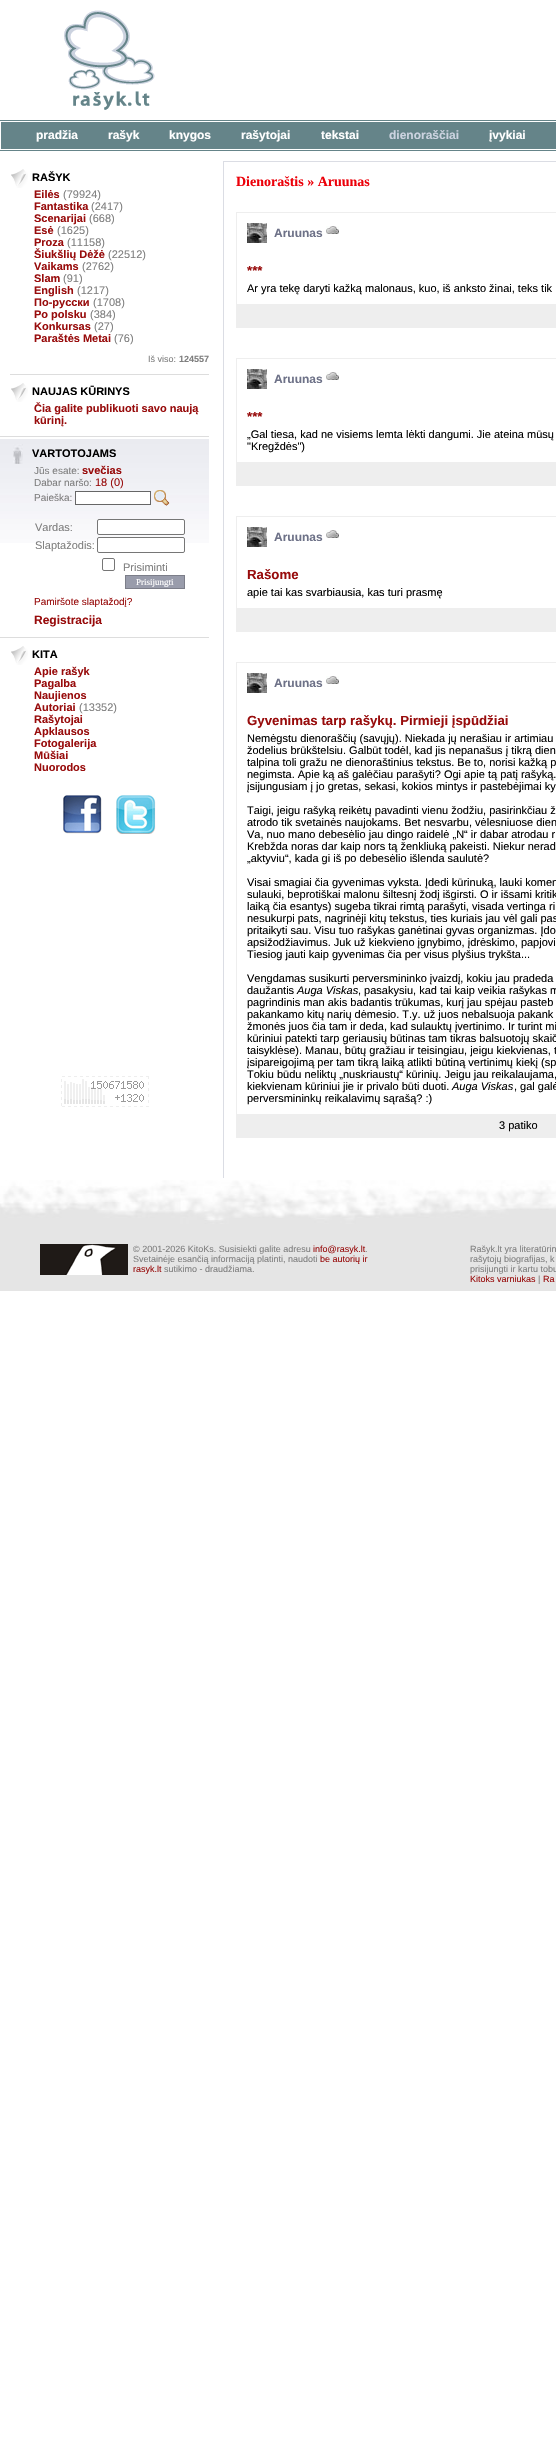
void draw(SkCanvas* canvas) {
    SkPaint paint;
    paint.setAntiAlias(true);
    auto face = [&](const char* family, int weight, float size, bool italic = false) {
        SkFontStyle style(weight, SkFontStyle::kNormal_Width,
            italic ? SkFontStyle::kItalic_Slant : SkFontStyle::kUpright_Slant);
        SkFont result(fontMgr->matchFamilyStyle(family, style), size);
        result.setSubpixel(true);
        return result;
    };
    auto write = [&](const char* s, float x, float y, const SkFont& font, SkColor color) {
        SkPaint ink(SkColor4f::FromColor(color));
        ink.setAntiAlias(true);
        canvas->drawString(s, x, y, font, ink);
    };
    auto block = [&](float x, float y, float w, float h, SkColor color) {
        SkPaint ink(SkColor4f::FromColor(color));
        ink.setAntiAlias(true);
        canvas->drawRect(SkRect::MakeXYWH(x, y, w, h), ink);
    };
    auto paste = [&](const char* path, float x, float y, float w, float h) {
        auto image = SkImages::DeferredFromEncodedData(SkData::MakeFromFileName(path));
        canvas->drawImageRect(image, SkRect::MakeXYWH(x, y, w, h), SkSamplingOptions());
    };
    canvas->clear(SK_ColorWHITE);
    paste("pic1.png", 64, 10, 91, 100);
    block(0, 120, 556, 1, SkColorSetRGB(101, 132, 137));
    block(0, 150, 556, 1, SkColorSetRGB(101, 132, 137));
    block(1, 122, 555, 27, SkColorSetRGB(101, 132, 137));
    auto kFont1 = face("Liberation Sans", 700, 12);
    write("pradžia", 36, 139, kFont1, SK_ColorWHITE);
    write("rašyk", 108, 139, kFont1, SK_ColorWHITE);
    write("knygos", 169, 139, kFont1, SK_ColorWHITE);
    write("rašytojai", 241, 139, kFont1, SK_ColorWHITE);
    write("tekstai", 321, 139, kFont1, SK_ColorWHITE);
    write("dienoraščiai", 389, 139, kFont1, SkColorSetRGB(204, 211, 224));
    write("įvykiai", 489, 139, kFont1, SK_ColorWHITE);
    paste("pic2.png", 11, 169, 17, 19);
    auto kFont2 = face("Liberation Sans", 700, 11);
    write("RAŠYK", 32, 181, kFont2, SK_ColorBLACK);
    write("Eilės", 34, 198, kFont2, SkColorSetRGB(152, 12, 12));
    auto kFont3 = face("Liberation Sans", 400, 11);
    write("(79924)", 63, 198, kFont3, SkColorSetRGB(127, 127, 127));
    write("Fantastika", 34, 210, kFont2, SkColorSetRGB(152, 12, 12));
    write("(2417)", 91, 210, kFont3, SkColorSetRGB(127, 127, 127));
    write("Scenarijai", 34, 222, kFont2, SkColorSetRGB(152, 12, 12));
    write("(668)", 89, 222, kFont3, SkColorSetRGB(127, 127, 127));
    write("Esė", 34, 234, kFont2, SkColorSetRGB(152, 12, 12));
    write("(1625)", 57, 234, kFont3, SkColorSetRGB(127, 127, 127));
    write("Proza", 34, 246, kFont2, SkColorSetRGB(152, 12, 12));
    write("(11158)", 67, 246, kFont3, SkColorSetRGB(127, 127, 127));
    write("Šiukšlių Dėžė", 34, 258, kFont2, SkColorSetRGB(152, 12, 12));
    write("(22512)", 108, 258, kFont3, SkColorSetRGB(127, 127, 127));
    write("Vaikams", 34, 270, kFont2, SkColorSetRGB(152, 12, 12));
    write("(2762)", 82, 270, kFont3, SkColorSetRGB(127, 127, 127));
    write("Slam", 34, 282, kFont2, SkColorSetRGB(152, 12, 12));
    write("(91)", 63, 282, kFont3, SkColorSetRGB(127, 127, 127));
    write("English", 34, 294, kFont2, SkColorSetRGB(152, 12, 12));
    write("(1217)", 77, 294, kFont3, SkColorSetRGB(127, 127, 127));
    write("По-русски", 34, 306, kFont2, SkColorSetRGB(152, 12, 12));
    write("(1708)", 93, 306, kFont3, SkColorSetRGB(127, 127, 127));
    write("Po polsku", 34, 318, kFont2, SkColorSetRGB(152, 12, 12));
    write("(384)", 90, 318, kFont3, SkColorSetRGB(127, 127, 127));
    write("Konkursas", 34, 330, kFont2, SkColorSetRGB(152, 12, 12));
    write("(27)", 94, 330, kFont3, SkColorSetRGB(127, 127, 127));
    write("Paraštės Metai", 34, 342, kFont2, SkColorSetRGB(152, 12, 12));
    write("(76)", 114, 342, kFont3, SkColorSetRGB(127, 127, 127));
    block(10, 374, 199, 1, SkColorSetRGB(221, 221, 221));
    auto kFont4 = face("Liberation Sans", 400, 9);
    write("Iš viso:", 148, 362, kFont4, SkColorSetRGB(127, 127, 127));
    auto kFont5 = face("Liberation Sans", 700, 9);
    write("124557", 179, 362, kFont5, SkColorSetRGB(127, 127, 127));
    paste("pic2.png", 11, 383, 17, 19);
    write("NAUJAS KŪRINYS", 32, 395, kFont2, SK_ColorBLACK);
    write("Čia galite publikuoti savo naują", 34, 412, kFont2, SkColorSetRGB(152, 12, 12));
    write("kūrinį.", 34, 424, kFont2, SkColorSetRGB(152, 12, 12));
    paste("pic3.png", 0, 439, 209, 104);
    block(0, 436, 209, 1, SkColorSetRGB(221, 221, 221));
    paste("pic4.png", 13, 444, 10, 20);
    write("VARTOTOJAMS", 32, 457, kFont2, SK_ColorBLACK);
    auto kFont6 = face("Liberation Sans", 400, 10);
    write("Jūs esate:", 34, 474, kFont6, SkColorSetRGB(127, 127, 127));
    write("svečias", 82, 474, kFont2, SkColorSetRGB(152, 12, 12));
    write("Dabar naršo:", 34, 486, kFont6, SkColorSetRGB(127, 127, 127));
    write("18 (0)", 95, 486, kFont3, SkColorSetRGB(152, 12, 12));
    write("Paieška:", 34, 501, kFont6, SkColorSetRGB(127, 127, 127));
    paint.setColor(SK_ColorWHITE);
    canvas->drawRect(SkRect::MakeXYWH(75.5f, 491.5f, 75, 13), paint);
    paint.setStyle(SkPaint::kStroke_Style);
    paint.setStrokeWidth(1);
    paint.setColor(SkColorSetRGB(102, 102, 102));
    canvas->drawRect(SkRect::MakeXYWH(75.5f, 491.5f, 75, 13), paint);
    paste("pic5.png", 154, 490, 16, 16);
    write("Vardas:", 35, 531, kFont3, SkColorSetRGB(127, 127, 127));
    paint.setStyle(SkPaint::kFill_Style);
    paint.setColor(SK_ColorWHITE);
    canvas->drawRoundRect(SkRect::MakeXYWH(97.5f, 519.5f, 87, 15), 1.5f, 1.5f, paint);
    paint.setStyle(SkPaint::kStroke_Style);
    paint.setColor(SkColorSetRGB(118, 118, 118));
    canvas->drawRoundRect(SkRect::MakeXYWH(97.5f, 519.5f, 87, 15), 1.5f, 1.5f, paint);
    write("Slaptažodis:", 35, 549, kFont3, SkColorSetRGB(127, 127, 127));
    paint.setStyle(SkPaint::kFill_Style);
    paint.setColor(SK_ColorWHITE);
    canvas->drawRoundRect(SkRect::MakeXYWH(97.5f, 537.5f, 87, 15), 1.5f, 1.5f, paint);
    paint.setStyle(SkPaint::kStroke_Style);
    paint.setColor(SkColorSetRGB(118, 118, 118));
    canvas->drawRoundRect(SkRect::MakeXYWH(97.5f, 537.5f, 87, 15), 1.5f, 1.5f, paint);
    canvas->drawRoundRect(SkRect::MakeXYWH(102.5f, 558.5f, 12, 12), 1.5f, 1.5f, paint);
    write("Prisiminti", 123, 571, kFont3, SkColorSetRGB(127, 127, 127));
    paint.setStyle(SkPaint::kFill_Style);
    paint.setColor(SkColorSetRGB(153, 156, 171));
    canvas->drawRect(SkRect::MakeXYWH(125.5f, 575.5f, 59, 13), paint);
    paint.setStyle(SkPaint::kStroke_Style);
    paint.setColor(SkColorSetRGB(124, 126, 137));
    canvas->drawRect(SkRect::MakeXYWH(125.5f, 575.5f, 59, 13), paint);
    auto kFont7 = face("Liberation Serif", 400, 9);
    write("Prisijungti", 136, 585, kFont7, SK_ColorWHITE);
    write("Pamiršote slaptažodį?", 34, 605, kFont6, SkColorSetRGB(152, 12, 12));
    write("Registracija", 34, 624, kFont1, SkColorSetRGB(152, 12, 12));
    block(0, 637, 209, 1, SkColorSetRGB(221, 221, 221));
    paste("pic2.png", 11, 646, 17, 19);
    write("KITA", 32, 658, kFont2, SK_ColorBLACK);
    write("Apie rašyk", 34, 675, kFont2, SkColorSetRGB(152, 12, 12));
    write("Pagalba", 34, 687, kFont2, SkColorSetRGB(152, 12, 12));
    write("Naujienos", 34, 699, kFont2, SkColorSetRGB(152, 12, 12));
    write("Autoriai", 34, 711, kFont2, SkColorSetRGB(152, 12, 12));
    write("(13352)", 79, 711, kFont3, SkColorSetRGB(127, 127, 127));
    write("Rašytojai", 34, 723, kFont2, SkColorSetRGB(152, 12, 12));
    write("Apklausos", 34, 735, kFont2, SkColorSetRGB(152, 12, 12));
    write("Fotogalerija", 34, 747, kFont2, SkColorSetRGB(152, 12, 12));
    write("Mūšiai", 34, 759, kFont2, SkColorSetRGB(152, 12, 12));
    write("Nuorodos", 34, 771, kFont2, SkColorSetRGB(152, 12, 12));
    paste("pic6.png", 63, 795, 39, 39);
    paste("pic7.png", 116, 795, 40, 39);
    paste("pic8.png", 61, 1076, 88, 31);
    block(223, 161, 333, 1, SkColorSetRGB(219, 221, 228));
    block(223, 161, 1, 1017, SkColorSetRGB(219, 221, 228));
    auto kFont8 = face("Liberation Serif", 700, 14);
    write("Dienoraštis » Aruunas", 236, 186, kFont8, SkColorSetRGB(236, 0, 9));
    paint.setColor(SkColorSetRGB(238, 238, 238));
    canvas->drawRect(SkRect::MakeXYWH(236.5f, 212.5f, 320, 115), paint);
    paste("pic9.png", 247, 223, 20, 20);
    write("Aruunas", 274, 237, kFont1, SkColorSetRGB(110, 114, 136));
    paste("pic10.png", 326, 226, 13, 8);
    auto kFont9 = face("Liberation Sans", 700, 13.25f);
    write("***", 247, 275, kFont9, SkColorSetRGB(152, 12, 12));
    write("Ar yra tekę daryti kažką malonaus, kuo, iš anksto žinai, teks tik", 247, 292, kFont3, SK_ColorBLACK);
    block(237, 304, 319, 23, SkColorSetRGB(238, 238, 238));
    canvas->drawRect(SkRect::MakeXYWH(236.5f, 358.5f, 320, 127), paint);
    paste("pic9.png", 247, 369, 20, 20);
    write("Aruunas", 274, 383, kFont1, SkColorSetRGB(110, 114, 136));
    paste("pic10.png", 326, 372, 13, 8);
    write("***", 247, 421, kFont9, SkColorSetRGB(152, 12, 12));
    write("„Gal tiesa, kad ne visiems lemta lėkti dangumi. Jie ateina mūsų", 247, 438, kFont3, SK_ColorBLACK);
    write("\"Kregždės\")", 247, 450, kFont3, SK_ColorBLACK);
    block(237, 462, 319, 23, SkColorSetRGB(238, 238, 238));
    canvas->drawRect(SkRect::MakeXYWH(236.5f, 516.5f, 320, 115), paint);
    paste("pic9.png", 247, 527, 20, 20);
    write("Aruunas", 274, 541, kFont1, SkColorSetRGB(110, 114, 136));
    paste("pic10.png", 326, 530, 13, 8);
    write("Rašome", 247, 579, kFont9, SkColorSetRGB(152, 12, 12));
    write("apie tai kas svarbiausia, kas turi prasmę", 247, 596, kFont3, SK_ColorBLACK);
    block(237, 608, 319, 23, SkColorSetRGB(238, 238, 238));
    canvas->drawRect(SkRect::MakeXYWH(236.5f, 662.5f, 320, 475), paint);
    paste("pic9.png", 247, 673, 20, 20);
    write("Aruunas", 274, 687, kFont1, SkColorSetRGB(110, 114, 136));
    paste("pic10.png", 326, 676, 13, 8);
    write("Gyvenimas tarp rašykų. Pirmieji įspūdžiai", 247, 725, kFont9, SkColorSetRGB(152, 12, 12));
    write("Nemėgstu dienoraščių (savųjų). Niekada jų nerašiau ir artimiau", 247, 742, kFont3, SK_ColorBLACK);
    write("žodelius brūkštelsiu. Galbūt todėl, kad jis nepanašus į tikrą dien", 247, 754, kFont3, SK_ColorBLACK);
    write("talpina toli gražu ne dienoraštinius tekstus. Be to, norisi kažką p", 247, 766, kFont3, SK_ColorBLACK);
    write("negimsta. Apie ką aš galėčiau parašyti? Ogi apie tą patį rašyką.", 247, 778, kFont3, SK_ColorBLACK);
    write("įsijungusiam į jo gretas, sekasi, kokios mintys ir pastebėjimai ky", 247, 790, kFont3, SK_ColorBLACK);
    write("Taigi, jeigu rašyką reikėtų pavadinti vienu žodžiu, pasirinkčiau ž", 247, 814, kFont3, SK_ColorBLACK);
    write("atrodo tik svetainės naujokams. Bet nesvarbu, vėlesniuose dien", 247, 826, kFont3, SK_ColorBLACK);
    write("Va, nuo mano debesėlio jau dingo raidelė „N“ ir dabar atrodau r", 247, 838, kFont3, SK_ColorBLACK);
    write("Krebžda noras dar kaip nors tą ženkliuką pakeisti. Niekur nerad", 247, 850, kFont3, SK_ColorBLACK);
    write("„aktyviu“, kada gi iš po debesėlio išlenda saulutė?", 247, 862, kFont3, SK_ColorBLACK);
    write("Visai smagiai čia gyvenimas vyksta. Įdedi kūrinuką, lauki komen", 247, 886, kFont3, SK_ColorBLACK);
    write("sulauki, beprotiškai malonu šiltesnį žodį išgirsti. O ir išsami kritik", 247, 898, kFont3, SK_ColorBLACK);
    write("laiką čia esantys) sugeba tikrai rimtą parašyti, visada vertinga ri", 247, 910, kFont3, SK_ColorBLACK);
    write("nesukurpi pats, nagrinėji kitų tekstus, ties kuriais jau vėl gali pas", 247, 922, kFont3, SK_ColorBLACK);
    write("pritaikyti sau. Visu tuo rašykas ganėtinai gyvas organizmas. Įdo", 247, 934, kFont3, SK_ColorBLACK);
    write("apsižodžiavimus. Juk už kiekvieno įgnybimo, įdrėskimo, papjovi", 247, 946, kFont3, SK_ColorBLACK);
    write("Tiesiog jauti kaip gyvenimas čia per visus plyšius trykšta...", 247, 958, kFont3, SK_ColorBLACK);
    write("Vengdamas susikurti perversmininko įvaizdį, kokiu jau pradeda", 247, 982, kFont3, SK_ColorBLACK);
    write("daužantis", 247, 994, kFont3, SK_ColorBLACK);
    auto kFont10 = face("Liberation Sans", 400, 11, true);
    write("Auga Viskas", 297, 994, kFont10, SK_ColorBLACK);
    write(", pasakysiu, kad tai kaip veikia rašykas m", 358, 994, kFont3, SK_ColorBLACK);
    write("pagrindinis man akis badantis trūkumas, kurį jau spėjau pasteb", 247, 1006, kFont3, SK_ColorBLACK);
    write("pakankamo kitų narių dėmesio. T.y. už juos nebalsuoja pakank", 247, 1018, kFont3, SK_ColorBLACK);
    write("žmonės juos čia tam ir deda, kad sulauktų įvertinimo. Ir turint mi", 247, 1030, kFont3, SK_ColorBLACK);
    write("kūriniui patekti tarp geriausių būtinas tam tikras balsuotojų skaič", 247, 1042, kFont3, SK_ColorBLACK);
    write("taisyklėse). Manau, būtų gražiau ir teisingiau, jeigu kiekvienas, t", 247, 1054, kFont3, SK_ColorBLACK);
    write("įsipareigojimą per tam tikrą laiką atlikti būtiną vertinimų kiekį (sp", 247, 1066, kFont3, SK_ColorBLACK);
    write("Tokiu būdu neliktų „nuskriaustų“ kūrinių. Jeigu jau reikalaujama,", 247, 1078, kFont3, SK_ColorBLACK);
    write("kiekvienam kūriniui jie ir privalo būti duoti.", 247, 1090, kFont3, SK_ColorBLACK);
    write("Auga Viskas", 452, 1090, kFont10, SK_ColorBLACK);
    write(", gal galė", 514, 1090, kFont3, SK_ColorBLACK);
    write("perversmininkų reikalavimų sąrašą? :)", 247, 1102, kFont3, SK_ColorBLACK);
    block(237, 1114, 319, 23, SkColorSetRGB(238, 238, 238));
    write("3 patiko", 499, 1129, kFont3, SK_ColorBLACK);
    paste("pic11.png", 0, 1180, 556, 44);
    block(0, 1224, 556, 67, SkColorSetRGB(229, 229, 229));
    paste("pic12.png", 40, 1244, 88, 31);
    write("© 2001-2026 KitoKs. Susisiekti galite adresu", 133, 1252, kFont4, SkColorSetRGB(127, 127, 127));
    write("info@rasyk.lt", 313, 1252, kFont4, SkColorSetRGB(152, 12, 12));
    write(".", 365, 1252, kFont4, SkColorSetRGB(127, 127, 127));
    write("Svetainėje esančią informaciją platinti, naudoti", 133, 1262, kFont4, SkColorSetRGB(127, 127, 127));
    write("be autorių ir", 320, 1262, kFont4, SkColorSetRGB(152, 12, 12));
    write("rasyk.lt", 133, 1272, kFont4, SkColorSetRGB(152, 12, 12));
    write("sutikimo - draudžiama.", 164, 1272, kFont4, SkColorSetRGB(127, 127, 127));
    write("Rašyk.lt yra literatūrin", 470, 1252, kFont4, SkColorSetRGB(127, 127, 127));
    write("rašytojų biografijas, k", 470, 1262, kFont4, SkColorSetRGB(127, 127, 127));
    write("prisijungti ir kartu tobu", 470, 1272, kFont4, SkColorSetRGB(127, 127, 127));
    write("Kitoks varniukas", 470, 1282, kFont4, SkColorSetRGB(152, 12, 12));
    write("|", 538, 1282, kFont4, SkColorSetRGB(127, 127, 127));
    write("Ra", 543, 1282, kFont4, SkColorSetRGB(152, 12, 12));
}
